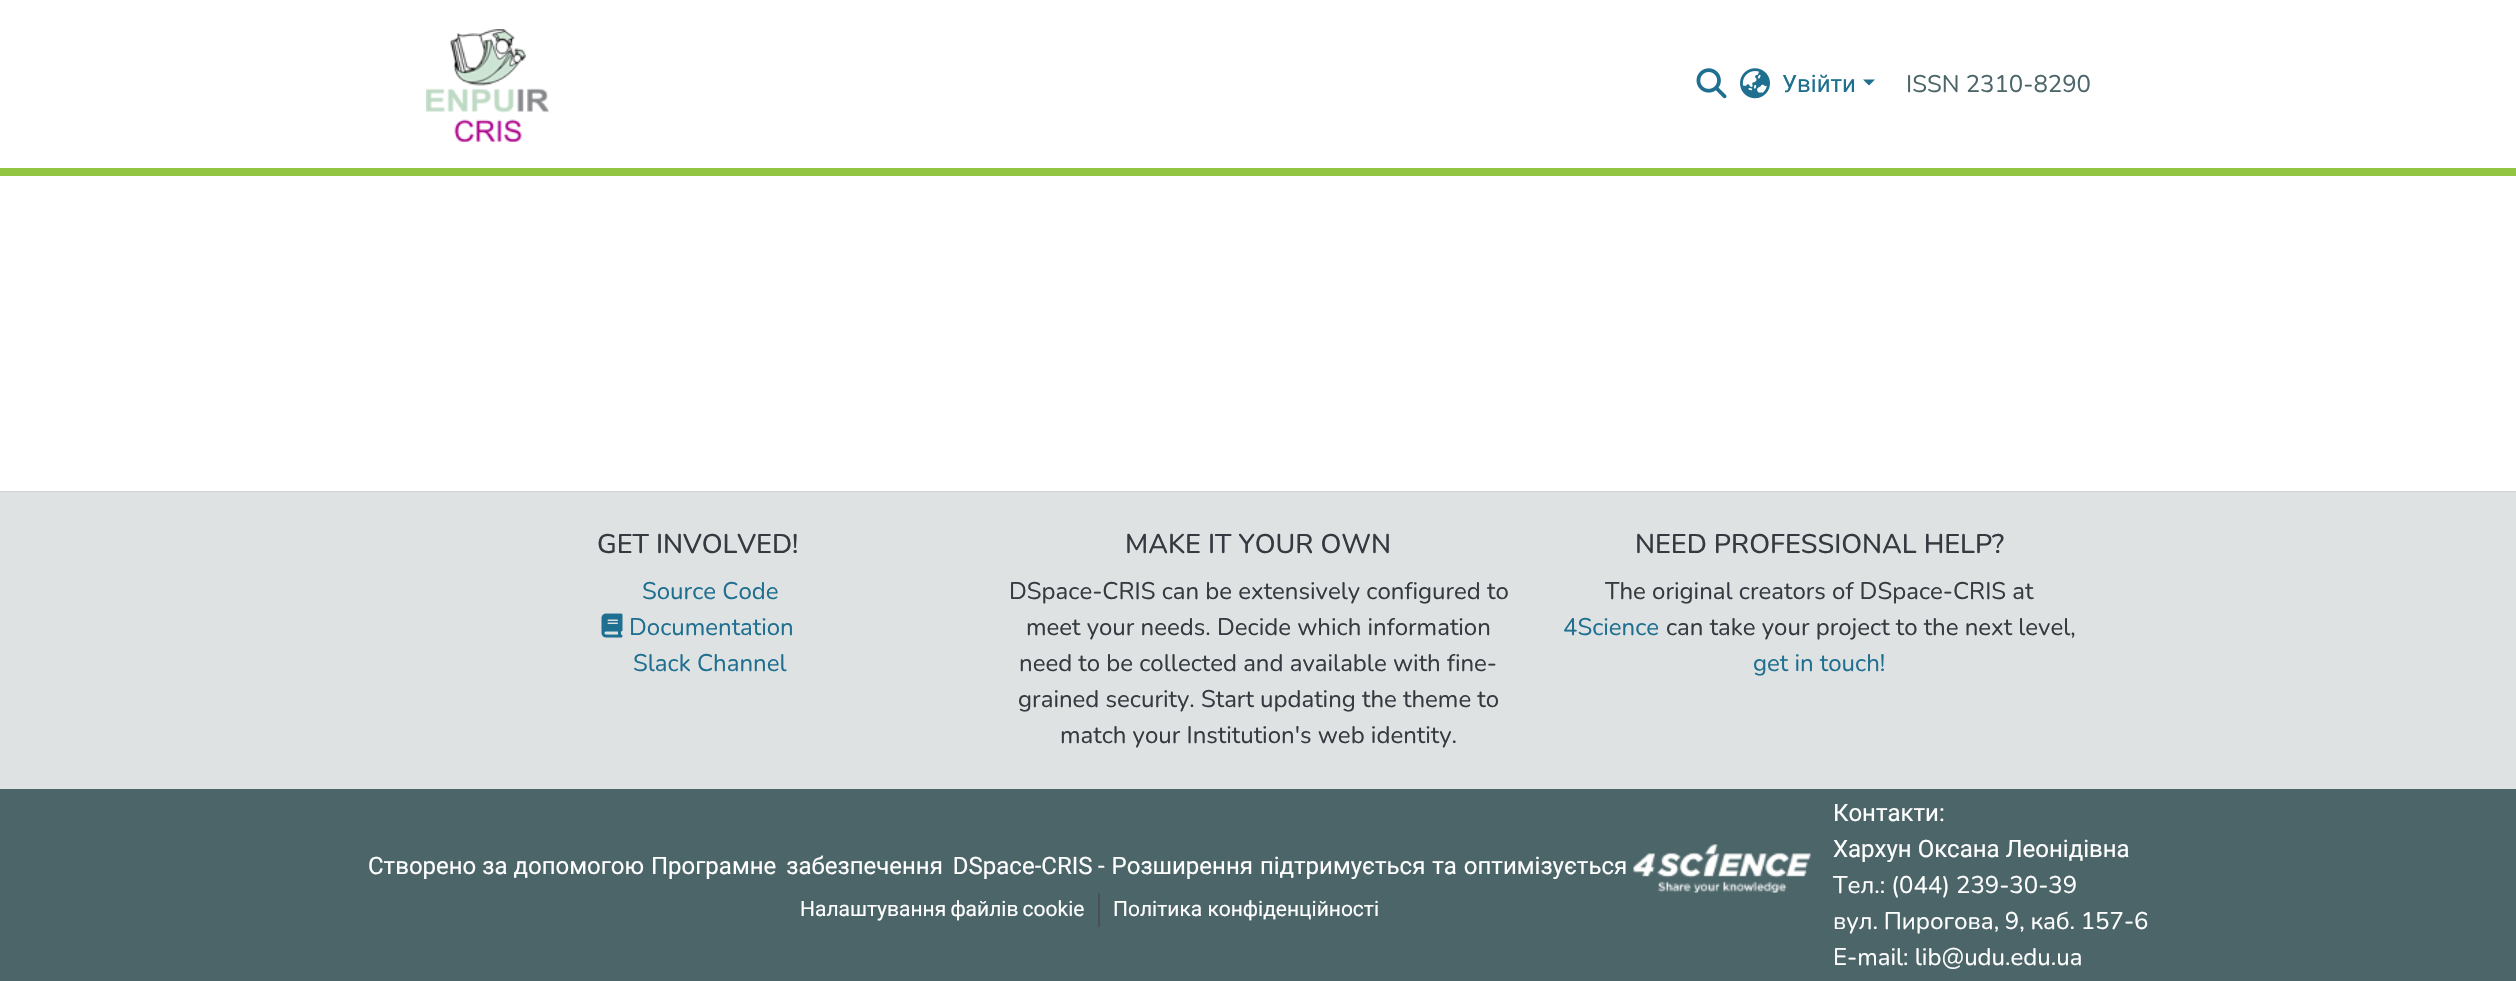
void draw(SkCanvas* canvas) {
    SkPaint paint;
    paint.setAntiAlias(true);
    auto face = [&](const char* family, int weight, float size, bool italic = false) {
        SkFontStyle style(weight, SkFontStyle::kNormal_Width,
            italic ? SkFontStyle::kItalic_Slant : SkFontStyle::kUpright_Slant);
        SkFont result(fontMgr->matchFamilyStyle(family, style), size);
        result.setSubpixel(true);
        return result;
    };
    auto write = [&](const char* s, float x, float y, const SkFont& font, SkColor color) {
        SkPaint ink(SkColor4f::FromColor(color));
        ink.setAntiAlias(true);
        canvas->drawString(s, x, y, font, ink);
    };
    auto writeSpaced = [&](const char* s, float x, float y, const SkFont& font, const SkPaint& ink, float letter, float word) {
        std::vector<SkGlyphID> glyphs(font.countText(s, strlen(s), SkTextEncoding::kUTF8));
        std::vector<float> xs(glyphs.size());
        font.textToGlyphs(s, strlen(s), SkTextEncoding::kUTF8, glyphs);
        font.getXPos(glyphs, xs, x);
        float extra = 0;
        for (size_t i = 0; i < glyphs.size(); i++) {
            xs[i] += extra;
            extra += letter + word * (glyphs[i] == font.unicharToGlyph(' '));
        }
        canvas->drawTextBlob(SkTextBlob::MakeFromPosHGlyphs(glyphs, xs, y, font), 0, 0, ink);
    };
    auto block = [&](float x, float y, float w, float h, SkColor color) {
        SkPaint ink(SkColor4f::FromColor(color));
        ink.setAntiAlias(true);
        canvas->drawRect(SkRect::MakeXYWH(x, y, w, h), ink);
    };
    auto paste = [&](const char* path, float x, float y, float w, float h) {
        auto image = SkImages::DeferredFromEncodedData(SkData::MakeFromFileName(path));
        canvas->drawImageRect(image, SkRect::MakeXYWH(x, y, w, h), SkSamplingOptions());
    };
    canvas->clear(SK_ColorWHITE);
    block(0, 168, 2516, 8, SkColorSetRGB(146, 198, 66));
    paste("pic1.png", 426, 29, 123, 113);
    paste("pic2.png", 1696, 68, 31, 31);
    paste("pic3.png", 1740, 68, 30, 31);
    auto kFont1 = face("Roboto", 400, 24);
    write("Увійти", 1782, 92, kFont1, SkColorSetRGB(30, 111, 144));
    paint.setColor(SkColorSetRGB(30, 111, 144));
    canvas->drawPath(SkPathBuilder().moveTo(1863, 79.5f).lineTo(1875, 79.5f).lineTo(1869, 85.5f).close().detach(), paint);
    auto kFont2 = face("Nunito", 400, 24);
    write("ISSN 2310-8290", 1906, 92, kFont2, SkColorSetRGB(75, 101, 105));
    block(0, 491, 2516, 1, SkColorSetRGB(206, 212, 218));
    block(0, 492, 2516, 297, SkColorSetRGB(223, 226, 226));
    auto kFont3 = face("Nunito", 500, 27);
    write("GET INVOLVED!", 597, 553, kFont3, SkColorSetRGB(52, 58, 64));
    write("Source Code", 642, 599, kFont2, SkColorSetRGB(30, 111, 144));
    paste("pic4.png", 601, 613, 22, 25);
    write("Documentation", 629, 635, kFont2, SkColorSetRGB(30, 111, 144));
    write("Slack Channel", 633, 671, kFont2, SkColorSetRGB(30, 111, 144));
    write("MAKE IT YOUR OWN", 1125, 553, kFont3, SkColorSetRGB(52, 58, 64));
    write("DSpace-CRIS can be extensively configured to", 1009, 599, kFont2, SkColorSetRGB(52, 58, 64));
    write("meet your needs. Decide which information", 1026, 635, kFont2, SkColorSetRGB(52, 58, 64));
    write("need to be collected and available with fine-", 1019, 671, kFont2, SkColorSetRGB(52, 58, 64));
    write("grained security. Start updating the theme to", 1018, 707, kFont2, SkColorSetRGB(52, 58, 64));
    write("match your Institution's web identity.", 1060, 743, kFont2, SkColorSetRGB(52, 58, 64));
    write("NEED PROFESSIONAL HELP?", 1635, 553, kFont3, SkColorSetRGB(52, 58, 64));
    write("The original creators of DSpace-CRIS at", 1605, 599, kFont2, SkColorSetRGB(52, 58, 64));
    write("4Science", 1563, 635, kFont2, SkColorSetRGB(30, 111, 144));
    write("can take your project to the next level,", 1666, 635, kFont2, SkColorSetRGB(52, 58, 64));
    write("get in touch!", 1753, 671, kFont2, SkColorSetRGB(30, 111, 144));
    block(0, 789, 2516, 192, SkColorSetRGB(75, 101, 105));
    write("Створено за допомогою", 368, 874, kFont1, SK_ColorWHITE);
    paint.setColor(SK_ColorWHITE);
    writeSpaced("Програмне забезпечення DSpace-CRIS", 651, 874, kFont1, paint, 0, 4);
    writeSpaced("- Розширення підтримується та оптимізується", 1098, 874, kFont1, paint, 0, 1);
    paste("pic5.png", 1633, 844, 178, 49);
    auto kFont4 = face("Roboto", 400, 21);
    writeSpaced("Налаштування файлів cookie", 800, 916, kFont4, paint, 0, -1);
    block(1098, 893, 2, 34, SkColorSetRGB(73, 80, 87));
    write("Політика конфіденційності", 1113, 916, kFont4, SK_ColorWHITE);
    write("Контакти:", 1833, 821, kFont1, SK_ColorWHITE);
    write("Хархун Оксана Леонідівна", 1833, 857, kFont1, SK_ColorWHITE);
    write("Тел.: (044) 239-30-39", 1833, 893, kFont2, SK_ColorWHITE);
    writeSpaced("вул. Пирогова, 9, каб. 157-6", 1833, 929, kFont2, paint, 0, -0.5f);
    write("E-mail: lib@udu.edu.ua", 1833, 965, kFont2, SK_ColorWHITE);
}
